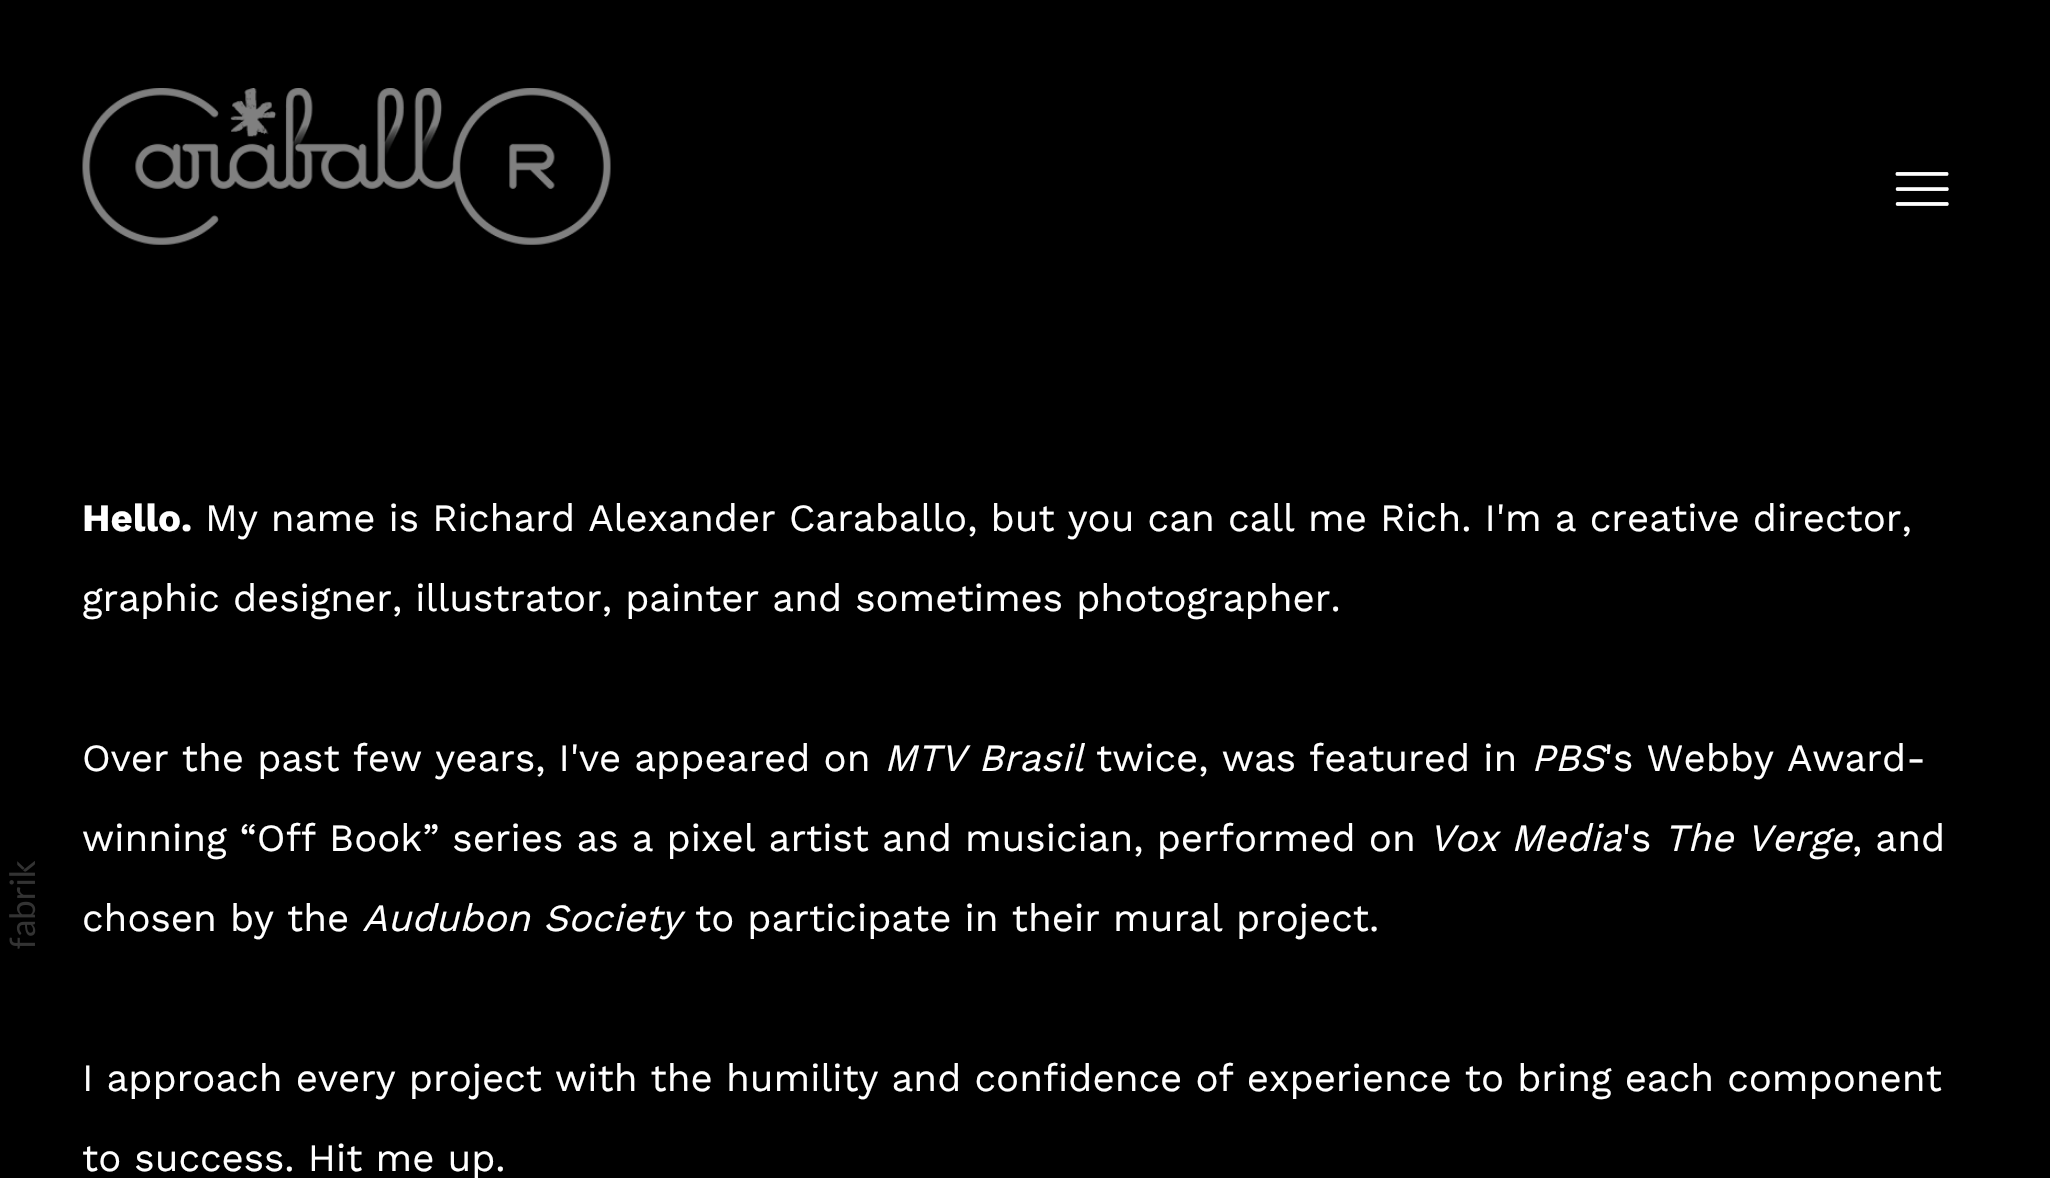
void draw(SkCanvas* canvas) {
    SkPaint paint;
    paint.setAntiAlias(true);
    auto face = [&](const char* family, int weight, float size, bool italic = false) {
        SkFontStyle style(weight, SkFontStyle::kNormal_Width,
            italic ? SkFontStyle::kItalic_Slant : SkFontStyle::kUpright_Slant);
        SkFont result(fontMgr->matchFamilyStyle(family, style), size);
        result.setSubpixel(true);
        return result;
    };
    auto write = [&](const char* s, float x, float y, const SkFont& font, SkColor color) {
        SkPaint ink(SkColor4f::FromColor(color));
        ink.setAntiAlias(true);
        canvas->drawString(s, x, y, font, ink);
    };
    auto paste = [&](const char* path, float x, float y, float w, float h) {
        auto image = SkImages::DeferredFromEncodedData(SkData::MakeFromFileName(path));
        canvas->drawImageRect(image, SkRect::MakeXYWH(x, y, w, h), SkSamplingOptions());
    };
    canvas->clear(SK_ColorBLACK);
    paste("pic1.png", 9, 861, 27, 88);
    paste("pic2.png", 82, 88, 529, 157);
    paste("pic3.png", 1895, 172, 54, 34);
    auto kFont1 = face("Work Sans", 700, 38.5f);
    write("Hello.", 82, 531, kFont1, SK_ColorWHITE);
    auto kFont2 = face("Work Sans", 400, 38.5f);
    write("My name is Richard Alexander Caraballo, but you can call me Rich. I'm a creative director,", 205, 531, kFont2, SK_ColorWHITE);
    write("graphic designer, illustrator, painter and sometimes photographer.", 82, 611, kFont2, SK_ColorWHITE);
    write("Over the past few years, I've appeared on", 82, 771, kFont2, SK_ColorWHITE);
    auto kFont3 = face("Work Sans", 400, 38.5f, true);
    write("MTV Brasil", 884, 771, kFont3, SK_ColorWHITE);
    write("twice, was featured in", 1096, 771, kFont2, SK_ColorWHITE);
    write("PBS", 1531, 771, kFont3, SK_ColorWHITE);
    write("'s Webby Award-", 1604, 771, kFont2, SK_ColorWHITE);
    write("winning “Off Book” series as a pixel artist and musician, performed on", 82, 851, kFont2, SK_ColorWHITE);
    write("Vox Media", 1429, 851, kFont3, SK_ColorWHITE);
    write("'s", 1622, 851, kFont2, SK_ColorWHITE);
    write("The Verge", 1664, 851, kFont3, SK_ColorWHITE);
    write(", and", 1852, 851, kFont2, SK_ColorWHITE);
    write("chosen by the", 82, 931, kFont2, SK_ColorWHITE);
    write("Audubon Society", 362, 931, kFont3, SK_ColorWHITE);
    write("to participate in their mural project.", 695, 931, kFont2, SK_ColorWHITE);
    write("I approach every project with the humility and confidence of experience to bring each component", 82, 1091, kFont2, SK_ColorWHITE);
    write("to success. Hit me up.", 82, 1171, kFont2, SK_ColorWHITE);
}
